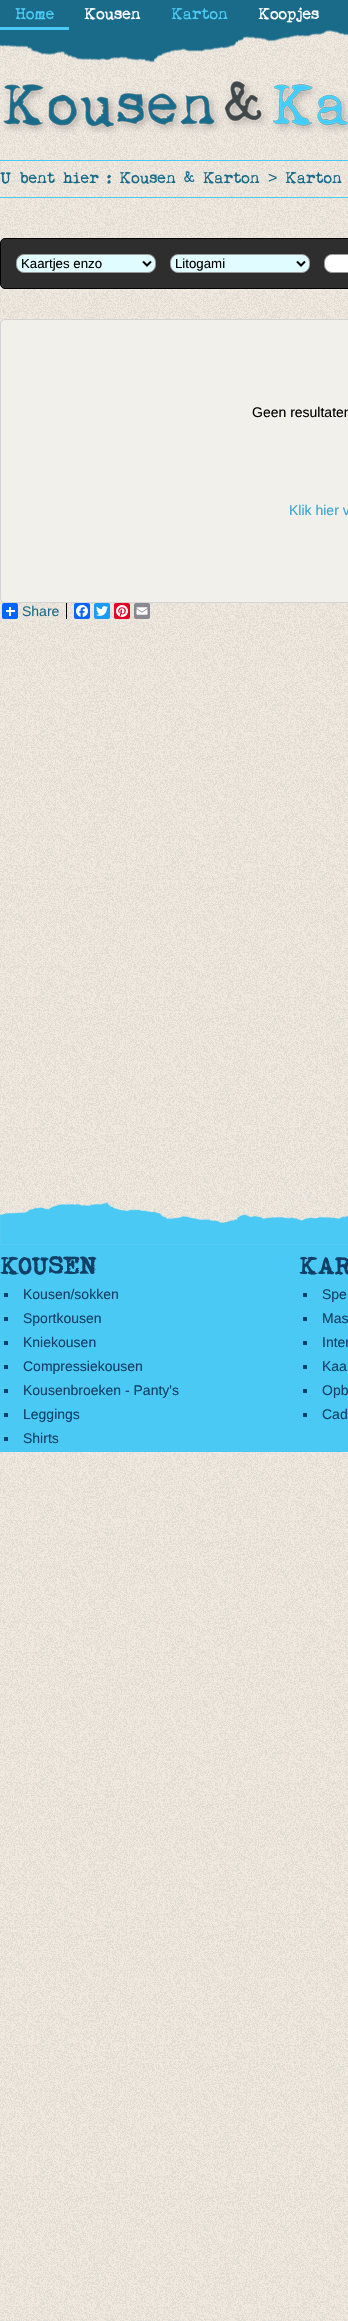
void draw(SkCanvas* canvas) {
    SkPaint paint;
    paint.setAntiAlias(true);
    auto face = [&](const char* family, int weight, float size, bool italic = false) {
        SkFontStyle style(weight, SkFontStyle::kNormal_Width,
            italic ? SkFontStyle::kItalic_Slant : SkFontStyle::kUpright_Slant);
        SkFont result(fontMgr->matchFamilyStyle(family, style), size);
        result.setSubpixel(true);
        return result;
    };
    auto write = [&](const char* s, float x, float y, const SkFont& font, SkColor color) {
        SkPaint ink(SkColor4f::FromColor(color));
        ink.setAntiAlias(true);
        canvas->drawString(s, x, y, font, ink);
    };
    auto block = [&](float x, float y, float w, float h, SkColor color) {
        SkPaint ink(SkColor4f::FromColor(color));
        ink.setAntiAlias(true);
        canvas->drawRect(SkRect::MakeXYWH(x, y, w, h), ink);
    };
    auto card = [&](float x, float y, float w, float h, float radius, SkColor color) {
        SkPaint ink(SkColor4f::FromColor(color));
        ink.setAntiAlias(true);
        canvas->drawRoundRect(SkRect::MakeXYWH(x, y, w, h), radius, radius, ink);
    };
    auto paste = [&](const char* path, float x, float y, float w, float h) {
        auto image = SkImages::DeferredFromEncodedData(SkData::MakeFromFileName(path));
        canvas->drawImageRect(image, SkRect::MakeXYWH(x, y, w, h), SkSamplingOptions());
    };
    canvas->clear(SkColorSetRGB(239, 233, 224));
    paste("pic1.png", 0, 30, 348, 2291);
    paste("pic2.png", 0, 0, 348, 63);
    block(0, 27, 69, 3, SkColorSetRGB(75, 201, 245));
    auto kFont1 = face("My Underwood", 400, 16);
    write("Home", 15, 19, kFont1, SkColorSetRGB(75, 201, 245));
    write("Kousen", 84, 19, kFont1, SK_ColorWHITE);
    write("Karton", 171, 19, kFont1, SkColorSetRGB(75, 201, 245));
    write("Koopjes", 258, 19, kFont1, SK_ColorWHITE);
    paste("pic3.png", 3, 79, 345, 55);
    block(0, 160, 348, 1, SkColorSetRGB(75, 201, 245));
    block(0, 197, 348, 1, SkColorSetRGB(75, 201, 245));
    write("U bent hier : Kousen & Karton", 0, 183, kFont1, SkColorSetRGB(26, 107, 137));
    auto kFont2 = face("Liberation Sans", 400, 16);
    write(">", 268, 183, kFont2, SkColorSetRGB(26, 107, 137));
    write("Karton", 285, 183, kFont1, SkColorSetRGB(26, 107, 137));
    paint.setColor(SkColorSetRGB(46, 46, 46));
    canvas->drawRoundRect(SkRect::MakeXYWH(0.5f, 238.5f, 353, 50), 4.5f, 4.5f, paint);
    paint.setStyle(SkPaint::kStroke_Style);
    paint.setStrokeWidth(1);
    paint.setColor(SK_ColorBLACK);
    canvas->drawRoundRect(SkRect::MakeXYWH(0.5f, 238.5f, 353, 50), 4.5f, 4.5f, paint);
    paint.setStyle(SkPaint::kFill_Style);
    paint.setColor(SkColorSetRGB(224, 252, 254));
    canvas->drawRoundRect(SkRect::MakeXYWH(16.5f, 254.5f, 139, 18), 7.5f, 7.5f, paint);
    paint.setStyle(SkPaint::kStroke_Style);
    paint.setColor(SkColorSetRGB(153, 153, 153));
    canvas->drawRoundRect(SkRect::MakeXYWH(16.5f, 254.5f, 139, 18), 7.5f, 7.5f, paint);
    paint.setStrokeWidth(2);
    paint.setColor(SK_ColorBLACK);
    canvas->drawPath(SkPathBuilder().moveTo(143, 261.5f).lineTo(147, 265.5f).lineTo(151, 261.5f).detach(), paint);
    auto kFont3 = face("Liberation Sans", 400, 13.25f);
    write("Kaartjes enzo", 21, 268, kFont3, SK_ColorBLACK);
    paint.setStyle(SkPaint::kFill_Style);
    paint.setColor(SkColorSetRGB(224, 252, 254));
    canvas->drawRoundRect(SkRect::MakeXYWH(170.5f, 254.5f, 139, 18), 7.5f, 7.5f, paint);
    paint.setStyle(SkPaint::kStroke_Style);
    paint.setStrokeWidth(1);
    paint.setColor(SkColorSetRGB(153, 153, 153));
    canvas->drawRoundRect(SkRect::MakeXYWH(170.5f, 254.5f, 139, 18), 7.5f, 7.5f, paint);
    paint.setStrokeWidth(2);
    paint.setColor(SK_ColorBLACK);
    canvas->drawPath(SkPathBuilder().moveTo(297, 261.5f).lineTo(301, 265.5f).lineTo(305, 261.5f).detach(), paint);
    write("Litogami", 175, 268, kFont3, SK_ColorBLACK);
    paint.setStyle(SkPaint::kFill_Style);
    paint.setColor(SK_ColorWHITE);
    canvas->drawRoundRect(SkRect::MakeXYWH(324.5f, 254.5f, 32, 18), 7.5f, 7.5f, paint);
    paint.setStyle(SkPaint::kStroke_Style);
    paint.setStrokeWidth(1);
    paint.setColor(SkColorSetRGB(153, 153, 153));
    canvas->drawRoundRect(SkRect::MakeXYWH(324.5f, 254.5f, 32, 18), 7.5f, 7.5f, paint);
    paint.setStyle(SkPaint::kFill_Style);
    paint.setColor(SkColorSetRGB(241, 240, 235));
    canvas->drawRoundRect(SkRect::MakeXYWH(0.5f, 319.5f, 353, 283), 4.5f, 4.5f, paint);
    paint.setStyle(SkPaint::kStroke_Style);
    paint.setColor(SkColorSetRGB(212, 212, 212));
    canvas->drawRoundRect(SkRect::MakeXYWH(0.5f, 319.5f, 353, 283), 4.5f, 4.5f, paint);
    auto kFont4 = face("Liberation Sans", 400, 14);
    write("Geen resultaten", 252, 417, kFont4, SK_ColorBLACK);
    write("Klik hier v", 289, 515, kFont4, SkColorSetRGB(54, 168, 210));
    card(2, 603, 16, 16, 2, SkColorSetRGB(1, 102, 255));
    block(9, 607, 2, 9, SK_ColorWHITE);
    block(6, 610, 9, 2, SK_ColorWHITE);
    write("Share", 22, 616, kFont4, SkColorSetRGB(26, 107, 137));
    block(66, 603, 1, 16, SK_ColorBLACK);
    card(74, 603, 16, 16, 2, SkColorSetRGB(8, 102, 255));
    paste("pic4.png", 76, 605, 12, 12);
    card(94, 603, 16, 16, 2, SkColorSetRGB(29, 155, 240));
    paste("pic5.png", 96, 606, 12, 10);
    card(114, 603, 16, 16, 2, SkColorSetRGB(230, 0, 35));
    paste("pic6.png", 116, 605, 12, 12);
    card(134, 603, 16, 16, 2, SkColorSetRGB(136, 137, 144));
    paste("pic7.png", 136, 607, 12, 8);
    paste("pic8.png", 0, 1192, 348, 260);
    auto kFont5 = face("My Underwood", 700, 24);
    write("KOUSEN", 0, 1274, kFont5, SkColorSetRGB(17, 64, 102));
    block(4, 1293, 4, 4, SkColorSetRGB(17, 64, 102));
    write("Kousen/sokken", 23, 1299, kFont4, SkColorSetRGB(17, 64, 102));
    block(4, 1317, 4, 4, SkColorSetRGB(17, 64, 102));
    write("Sportkousen", 23, 1323, kFont4, SkColorSetRGB(17, 64, 102));
    block(4, 1341, 4, 4, SkColorSetRGB(17, 64, 102));
    write("Kniekousen", 23, 1347, kFont4, SkColorSetRGB(17, 64, 102));
    block(4, 1365, 4, 4, SkColorSetRGB(17, 64, 102));
    write("Compressiekousen", 23, 1371, kFont4, SkColorSetRGB(17, 64, 102));
    block(4, 1389, 4, 4, SkColorSetRGB(17, 64, 102));
    write("Kousenbroeken - Panty's", 23, 1395, kFont4, SkColorSetRGB(17, 64, 102));
    block(4, 1413, 4, 4, SkColorSetRGB(17, 64, 102));
    write("Leggings", 23, 1419, kFont4, SkColorSetRGB(17, 64, 102));
    block(4, 1437, 4, 4, SkColorSetRGB(17, 64, 102));
    write("Shirts", 23, 1443, kFont4, SkColorSetRGB(17, 64, 102));
    write("KAR", 299, 1274, kFont5, SkColorSetRGB(17, 64, 102));
    block(303, 1293, 4, 4, SkColorSetRGB(17, 64, 102));
    write("Spe", 322, 1299, kFont4, SkColorSetRGB(17, 64, 102));
    block(303, 1317, 4, 4, SkColorSetRGB(17, 64, 102));
    write("Mas", 322, 1323, kFont4, SkColorSetRGB(17, 64, 102));
    block(303, 1341, 4, 4, SkColorSetRGB(17, 64, 102));
    write("Inter", 322, 1347, kFont4, SkColorSetRGB(17, 64, 102));
    block(303, 1365, 4, 4, SkColorSetRGB(17, 64, 102));
    write("Kaa", 322, 1371, kFont4, SkColorSetRGB(17, 64, 102));
    block(303, 1389, 4, 4, SkColorSetRGB(17, 64, 102));
    write("Opb", 322, 1395, kFont4, SkColorSetRGB(17, 64, 102));
    block(303, 1413, 4, 4, SkColorSetRGB(17, 64, 102));
    write("Cad", 322, 1419, kFont4, SkColorSetRGB(17, 64, 102));
}
